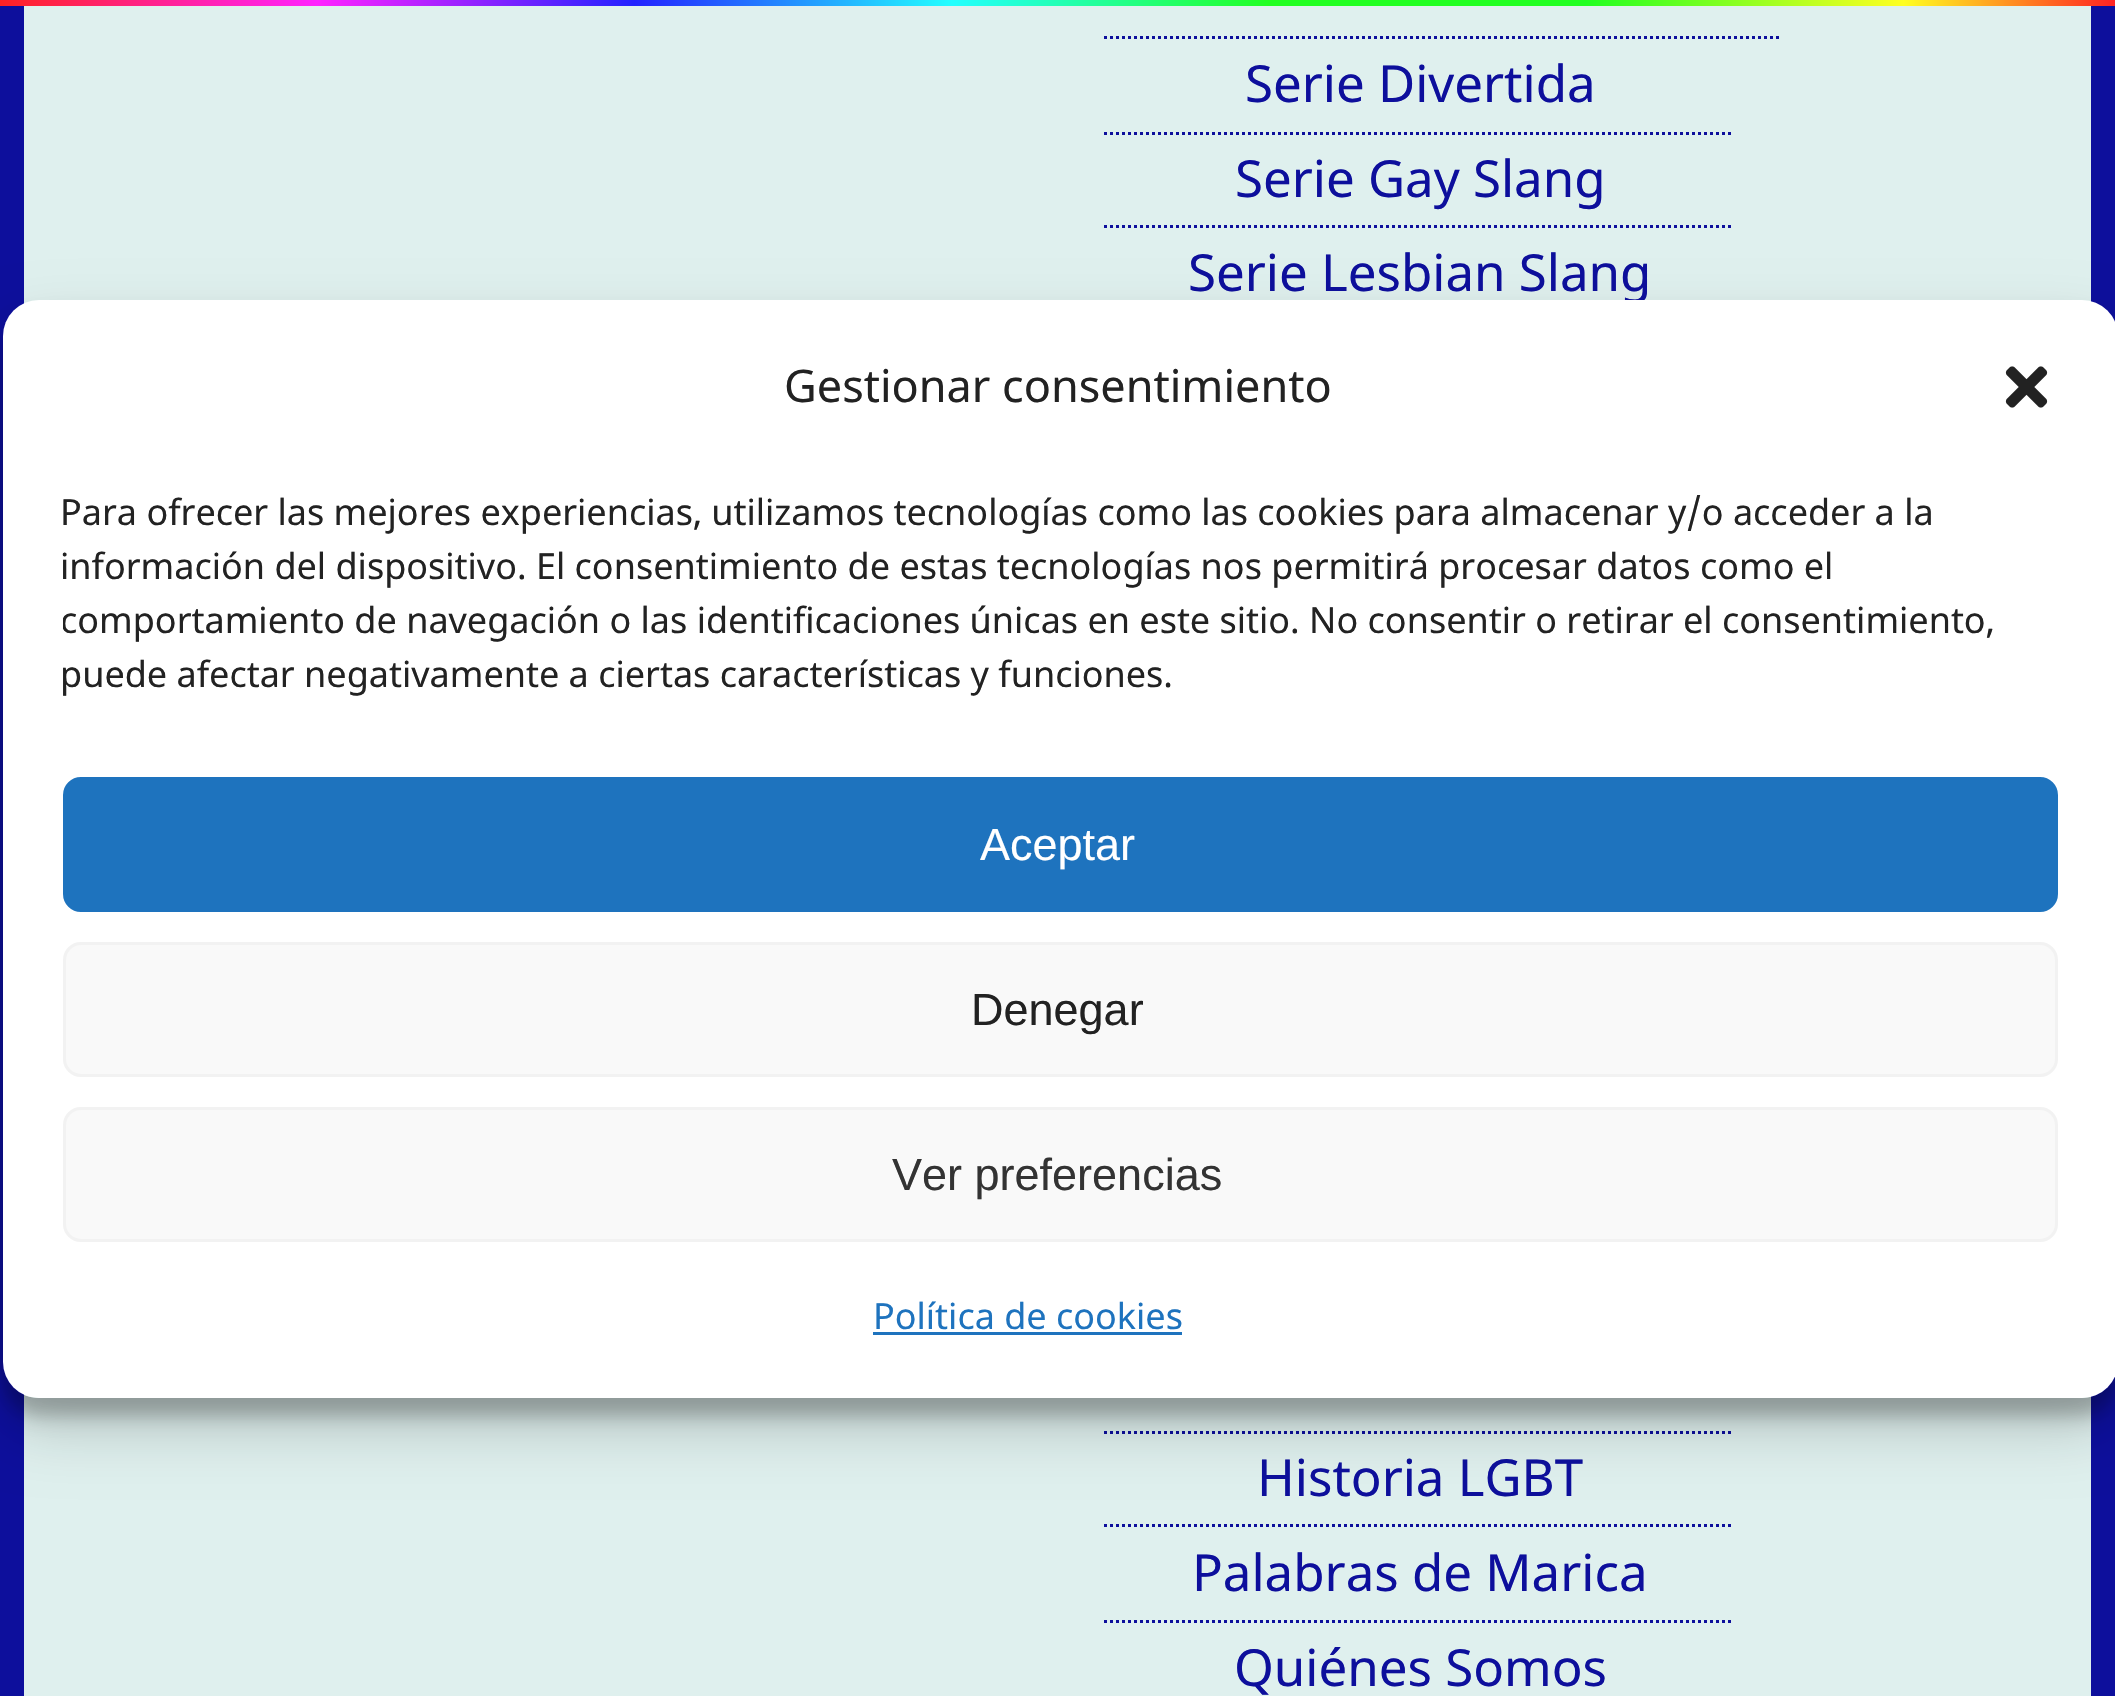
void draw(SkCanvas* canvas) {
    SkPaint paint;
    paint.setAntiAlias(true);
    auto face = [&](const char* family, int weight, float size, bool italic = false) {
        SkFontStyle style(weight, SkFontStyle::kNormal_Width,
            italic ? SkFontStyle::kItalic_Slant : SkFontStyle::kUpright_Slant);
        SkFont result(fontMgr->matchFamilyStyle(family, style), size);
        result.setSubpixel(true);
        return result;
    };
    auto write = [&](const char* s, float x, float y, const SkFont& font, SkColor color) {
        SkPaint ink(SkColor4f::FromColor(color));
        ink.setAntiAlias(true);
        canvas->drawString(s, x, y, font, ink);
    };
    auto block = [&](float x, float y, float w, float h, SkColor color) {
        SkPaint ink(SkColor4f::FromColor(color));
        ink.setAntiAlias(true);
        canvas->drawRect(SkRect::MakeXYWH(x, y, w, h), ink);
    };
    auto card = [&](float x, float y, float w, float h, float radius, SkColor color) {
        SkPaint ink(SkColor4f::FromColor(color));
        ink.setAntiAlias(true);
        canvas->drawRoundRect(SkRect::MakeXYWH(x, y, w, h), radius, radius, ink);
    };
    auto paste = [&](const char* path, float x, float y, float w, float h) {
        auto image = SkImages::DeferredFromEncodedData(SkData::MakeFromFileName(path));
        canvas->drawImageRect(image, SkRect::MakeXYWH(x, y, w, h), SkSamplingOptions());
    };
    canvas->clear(SkColorSetRGB(223, 240, 238));
    block(2091, 6, 24, 1690, SkColorSetRGB(13, 15, 156));
    block(0, 6, 24, 1690, SkColorSetRGB(13, 15, 156));
    {
        const SkColor colors[] = {SkColorSetRGB(255, 34, 34), SkColorSetRGB(255, 34, 255), SkColorSetRGB(34, 34, 255), SkColorSetRGB(34, 255, 255), SkColorSetRGB(34, 255, 34), SkColorSetRGB(34, 255, 34), SkColorSetRGB(255, 255, 34), SkColorSetRGB(255, 34, 34)};
        const float stops[] = {0, 0.15f, 0.3f, 0.45f, 0.6f, 0.75f, 0.9f, 1};
        const SkPoint ends[] = {{0, 0}, {2115, 0}};
        paint.setShader(SkGradientShader::MakeLinear(ends, colors, stops, 8, SkTileMode::kClamp));
        paint.setAlpha(255);
    }
    canvas->drawRect(SkRect::MakeXYWH(0, 0, 2115, 6), paint);
    paint.setStyle(SkPaint::kStroke_Style);
    paint.setStrokeWidth(3);
    paint.setShader(nullptr);
    paint.setColor(SkColorSetRGB(13, 15, 156));
    paint.setPathEffect(SkDashPathEffect::Make({{3, 3}}, 0));
    canvas->drawPath(SkPathBuilder().moveTo(1104, 37.5f).lineTo(1779, 37.5f).detach(), paint);
    paint.setPathEffect(nullptr);
    paint.setPathEffect(SkDashPathEffect::Make({{3, 3}}, 0));
    canvas->drawPath(SkPathBuilder().moveTo(1104, 133.5f).lineTo(1734, 133.5f).detach(), paint);
    paint.setPathEffect(nullptr);
    auto kFont1 = face("Noto Sans", 400, 51);
    write("Serie Divertida", 1245, 102, kFont1, SkColorSetRGB(13, 15, 156));
    paint.setPathEffect(SkDashPathEffect::Make({{3, 3}}, 0));
    canvas->drawPath(SkPathBuilder().moveTo(1104, 226.5f).lineTo(1734, 226.5f).detach(), paint);
    paint.setPathEffect(nullptr);
    write("Serie Gay Slang", 1235, 197, kFont1, SkColorSetRGB(13, 15, 156));
    write("Serie Lesbian Slang", 1188, 291, kFont1, SkColorSetRGB(13, 15, 156));
    paint.setPathEffect(SkDashPathEffect::Make({{3, 3}}, 0));
    canvas->drawPath(SkPathBuilder().moveTo(1104, 1432.5f).lineTo(1734, 1432.5f).detach(), paint);
    paint.setPathEffect(nullptr);
    paint.setPathEffect(SkDashPathEffect::Make({{3, 3}}, 0));
    canvas->drawPath(SkPathBuilder().moveTo(1104, 1525.5f).lineTo(1734, 1525.5f).detach(), paint);
    paint.setPathEffect(nullptr);
    write("Historia LGBT", 1257, 1496, kFont1, SkColorSetRGB(13, 15, 156));
    paint.setPathEffect(SkDashPathEffect::Make({{3, 3}}, 0));
    canvas->drawPath(SkPathBuilder().moveTo(1104, 1621.5f).lineTo(1734, 1621.5f).detach(), paint);
    paint.setPathEffect(nullptr);
    write("Palabras de Marica", 1192, 1591, kFont1, SkColorSetRGB(13, 15, 156));
    write("Quiénes Somos", 1234, 1686, kFont1, SkColorSetRGB(13, 15, 156));
    canvas->save();
    canvas->clipPath(SkPathBuilder(SkPathFillType::kEvenOdd).moveTo(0, 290).lineTo(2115, 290).lineTo(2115, 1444).lineTo(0, 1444).close().moveTo(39, 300).lineTo(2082, 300).cubicTo(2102, 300, 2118, 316, 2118, 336).lineTo(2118, 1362).cubicTo(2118, 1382, 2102, 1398, 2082, 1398).lineTo(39, 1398).cubicTo(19, 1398, 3, 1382, 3, 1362).lineTo(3, 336).cubicTo(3, 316, 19, 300, 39, 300).close().detach(), true);
    paint.setStyle(SkPaint::kFill_Style);
    paint.setColor(SkColorSetARGB(59, 0, 0, 0));
    paint.setMaskFilter(SkMaskFilter::MakeBlur(kNormal_SkBlurStyle, 9));
    canvas->drawRoundRect(SkRect::MakeXYWH(3, 318, 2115, 1098), 36, 36, paint);
    paint.setMaskFilter(nullptr);
    canvas->restore();
    canvas->save();
    canvas->clipPath(SkPathBuilder(SkPathFillType::kEvenOdd).moveTo(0, 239).lineTo(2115, 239).lineTo(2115, 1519).lineTo(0, 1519).close().moveTo(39, 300).lineTo(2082, 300).cubicTo(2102, 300, 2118, 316, 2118, 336).lineTo(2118, 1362).cubicTo(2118, 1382, 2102, 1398, 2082, 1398).lineTo(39, 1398).cubicTo(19, 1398, 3, 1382, 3, 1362).lineTo(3, 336).cubicTo(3, 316, 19, 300, 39, 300).close().detach(), true);
    paint.setColor(SkColorSetARGB(48, 0, 0, 0));
    paint.setMaskFilter(SkMaskFilter::MakeBlur(kNormal_SkBlurStyle, 30));
    canvas->drawRoundRect(SkRect::MakeXYWH(3, 330, 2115, 1098), 36, 36, paint);
    paint.setMaskFilter(nullptr);
    canvas->restore();
    card(3, 300, 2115, 1098, 36, SK_ColorWHITE);
    auto kFont2 = face("Noto Sans", 400, 45);
    write("Gestionar consentimiento", 784, 402, kFont2, SkColorSetRGB(34, 34, 34));
    paste("pic1.png", 2005, 366, 43, 42);
    auto kFont3 = face("Noto Sans", 400, 36);
    write("Para ofrecer las mejores experiencias, utilizamos tecnologías como las cookies para almacenar y/o acceder a la", 60, 525, kFont3, SkColorSetRGB(34, 34, 34));
    write("información del dispositivo. El consentimiento de estas tecnologías nos permitirá procesar datos como el", 60, 579, kFont3, SkColorSetRGB(34, 34, 34));
    canvas->save();
    canvas->clipRect(SkRect::MakeXYWH(63, 486, 1995, 231));
    write("comportamiento de navegación o las identificaciones únicas en este sitio. No consentir o retirar el consentimiento,", 60, 633, kFont3, SkColorSetRGB(34, 34, 34));
    canvas->restore();
    write("puede afectar negativamente a ciertas características y funciones.", 60, 687, kFont3, SkColorSetRGB(34, 34, 34));
    paint.setColor(SkColorSetRGB(30, 115, 190));
    canvas->drawRoundRect(SkRect::MakeXYWH(64.5f, 778.5f, 1992, 132), 16.5f, 16.5f, paint);
    paint.setStyle(SkPaint::kStroke_Style);
    canvas->drawRoundRect(SkRect::MakeXYWH(64.5f, 778.5f, 1992, 132), 16.5f, 16.5f, paint);
    auto kFont4 = face("Liberation Sans", 400, 45);
    write("Aceptar", 980, 860, kFont4, SK_ColorWHITE);
    paint.setStyle(SkPaint::kFill_Style);
    paint.setColor(SkColorSetRGB(249, 249, 249));
    canvas->drawRoundRect(SkRect::MakeXYWH(64.5f, 943.5f, 1992, 132), 16.5f, 16.5f, paint);
    paint.setStyle(SkPaint::kStroke_Style);
    paint.setColor(SkColorSetRGB(242, 242, 242));
    canvas->drawRoundRect(SkRect::MakeXYWH(64.5f, 943.5f, 1992, 132), 16.5f, 16.5f, paint);
    write("Denegar", 971, 1025, kFont4, SkColorSetRGB(34, 34, 34));
    paint.setStyle(SkPaint::kFill_Style);
    paint.setColor(SkColorSetRGB(249, 249, 249));
    canvas->drawRoundRect(SkRect::MakeXYWH(64.5f, 1108.5f, 1992, 132), 16.5f, 16.5f, paint);
    paint.setStyle(SkPaint::kStroke_Style);
    paint.setColor(SkColorSetRGB(242, 242, 242));
    canvas->drawRoundRect(SkRect::MakeXYWH(64.5f, 1108.5f, 1992, 132), 16.5f, 16.5f, paint);
    write("Ver preferencias", 892, 1190, kFont4, SkColorSetRGB(51, 51, 51));
    write("Política de cookies", 873, 1329, kFont3, SkColorSetRGB(30, 115, 190));
    block(873, 1332, 309, 3, SkColorSetRGB(30, 115, 190));
}
